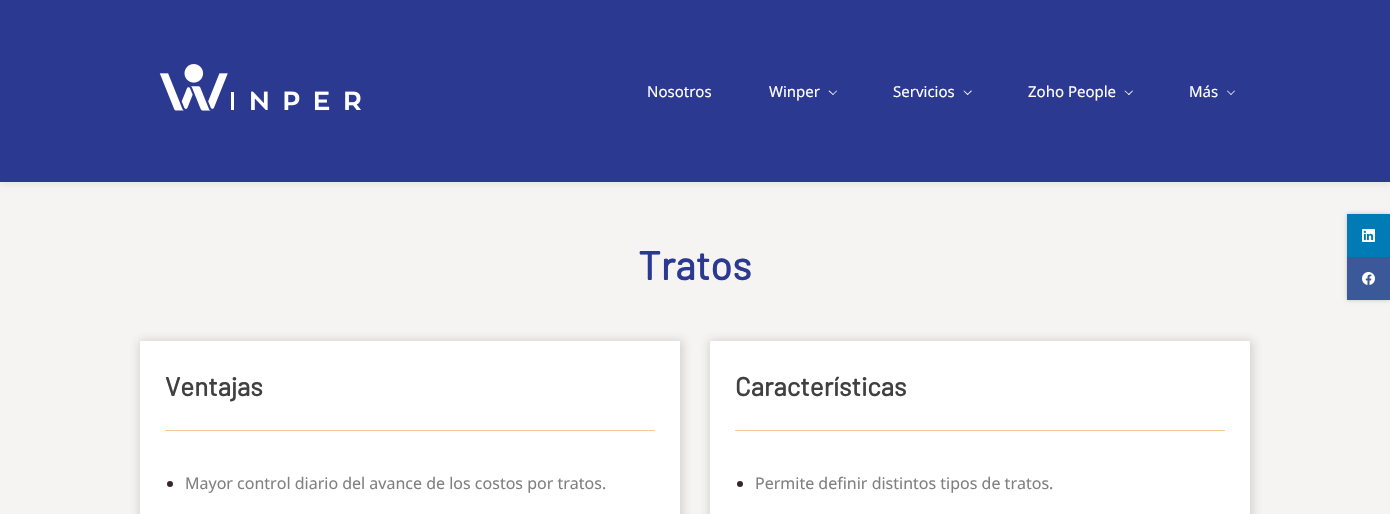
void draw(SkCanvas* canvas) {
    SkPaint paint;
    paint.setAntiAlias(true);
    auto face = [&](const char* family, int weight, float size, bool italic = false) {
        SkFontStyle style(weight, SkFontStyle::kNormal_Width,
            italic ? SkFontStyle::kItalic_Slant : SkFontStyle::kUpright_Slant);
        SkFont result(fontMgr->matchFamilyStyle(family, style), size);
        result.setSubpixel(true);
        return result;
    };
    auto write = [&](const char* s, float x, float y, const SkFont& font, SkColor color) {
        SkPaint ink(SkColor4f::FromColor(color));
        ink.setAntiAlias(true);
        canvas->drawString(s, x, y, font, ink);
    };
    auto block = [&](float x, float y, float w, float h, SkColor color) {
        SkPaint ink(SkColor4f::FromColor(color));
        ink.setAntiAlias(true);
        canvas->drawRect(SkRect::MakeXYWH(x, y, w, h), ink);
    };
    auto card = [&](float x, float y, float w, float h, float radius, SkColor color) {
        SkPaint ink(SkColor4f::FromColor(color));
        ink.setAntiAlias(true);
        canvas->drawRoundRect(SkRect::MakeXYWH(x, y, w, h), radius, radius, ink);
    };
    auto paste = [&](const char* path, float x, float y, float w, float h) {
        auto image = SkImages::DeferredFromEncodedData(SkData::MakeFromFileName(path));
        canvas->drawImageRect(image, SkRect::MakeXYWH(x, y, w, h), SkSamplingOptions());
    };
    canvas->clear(SK_ColorWHITE);
    card(0, 182, 1390, 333, 1, SkColorSetRGB(245, 244, 242));
    paint.setColor(SkColorSetARGB(13, 0, 0, 0));
    paint.setMaskFilter(SkMaskFilter::MakeBlur(kNormal_SkBlurStyle, 2.5f));
    canvas->drawRect(SkRect::MakeXYWH(0, 3, 1390, 182), paint);
    paint.setMaskFilter(nullptr);
    block(0, 0, 1390, 182, SkColorSetRGB(43, 57, 145));
    paste("pic1.png", 159, 64, 202, 47);
    auto kFont1 = face("Noto Sans", 400, 15);
    write("Nosotros", 647, 97, kFont1, SK_ColorWHITE);
    write("Winper", 769, 97, kFont1, SK_ColorWHITE);
    paint.setColor(SK_ColorWHITE);
    canvas->drawPath(SkPathBuilder().moveTo(837, 91).lineTo(833, 95).lineTo(832.5f, 94.5f).lineTo(836.5f, 90.5f).close().detach(), paint);
    canvas->drawPath(SkPathBuilder().moveTo(833.5f, 94.5f).lineTo(833, 95).lineTo(828.5f, 91).lineTo(829.5f, 90.5f).close().detach(), paint);
    write("Servicios", 893, 97, kFont1, SK_ColorWHITE);
    canvas->drawPath(SkPathBuilder().moveTo(972, 91).lineTo(967.5f, 95).lineTo(967, 94.5f).lineTo(971, 90.5f).close().detach(), paint);
    canvas->drawPath(SkPathBuilder().moveTo(968.5f, 94.5f).lineTo(967.5f, 95).lineTo(963.5f, 91).lineTo(964, 90.5f).close().detach(), paint);
    write("Zoho People", 1028, 97, kFont1, SK_ColorWHITE);
    canvas->drawPath(SkPathBuilder().moveTo(1133, 91).lineTo(1129, 95).lineTo(1128, 94.5f).lineTo(1132.5f, 90.5f).close().detach(), paint);
    canvas->drawPath(SkPathBuilder().moveTo(1129.5f, 94.5f).lineTo(1129, 95).lineTo(1124.5f, 91).lineTo(1125, 90.5f).close().detach(), paint);
    write("Más", 1189, 97, kFont1, SK_ColorWHITE);
    canvas->drawPath(SkPathBuilder().moveTo(1235, 91).lineTo(1231, 95).lineTo(1230.5f, 94.5f).lineTo(1234.5f, 90.5f).close().detach(), paint);
    canvas->drawPath(SkPathBuilder().moveTo(1231.5f, 94.5f).lineTo(1231, 95).lineTo(1227, 91).lineTo(1227.5f, 90.5f).close().detach(), paint);
    paint.setColor(SkColorSetARGB(54, 0, 0, 0));
    paint.setMaskFilter(SkMaskFilter::MakeBlur(kNormal_SkBlurStyle, 2));
    canvas->drawRect(SkRect::MakeXYWH(1347, 214, 43, 86), paint);
    paint.setMaskFilter(nullptr);
    block(1347, 214, 43, 43, SkColorSetRGB(0, 123, 181));
    paste("pic2.png", 1362, 229, 13, 13);
    block(1347, 257, 43, 43, SkColorSetRGB(59, 89, 152));
    paste("pic3.png", 1362, 272, 13, 13);
    auto kFont2 = face("Barlow", 700, 40);
    write("Tratos", 638, 280, kFont2, SkColorSetRGB(43, 57, 145));
    paint.setColor(SkColorSetARGB(77, 128, 128, 128));
    paint.setMaskFilter(SkMaskFilter::MakeBlur(kNormal_SkBlurStyle, 5));
    canvas->drawRoundRect(SkRect::MakeXYWH(139, 340, 544, 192), 3, 3, paint);
    paint.setMaskFilter(nullptr);
    card(140, 341, 540, 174, 1, SK_ColorWHITE);
    auto kFont3 = face("Barlow", 700, 26);
    write("Ventajas", 165, 396, kFont3, SkColorSetRGB(64, 64, 64));
    block(165, 430, 490, 1, SkColorSetRGB(247, 202, 157));
    paint.setColor(SkColorSetRGB(54, 38, 41));
    canvas->drawCircle(170, 484, 3, paint);
    auto kFont4 = face("Noto Sans", 400, 16);
    write("Mayor control diario del avance de los costos por tratos.", 185, 489, kFont4, SkColorSetRGB(128, 128, 128));
    paint.setColor(SkColorSetARGB(77, 128, 128, 128));
    paint.setMaskFilter(SkMaskFilter::MakeBlur(kNormal_SkBlurStyle, 5));
    canvas->drawRoundRect(SkRect::MakeXYWH(709, 340, 544, 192), 3, 3, paint);
    paint.setMaskFilter(nullptr);
    card(710, 341, 540, 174, 1, SK_ColorWHITE);
    write("Características", 735, 396, kFont3, SkColorSetRGB(64, 64, 64));
    block(735, 430, 490, 1, SkColorSetRGB(247, 202, 157));
    paint.setColor(SkColorSetRGB(54, 38, 41));
    canvas->drawCircle(740, 484, 3, paint);
    write("Permite definir distintos tipos de tratos.", 755, 489, kFont4, SkColorSetRGB(128, 128, 128));
}
